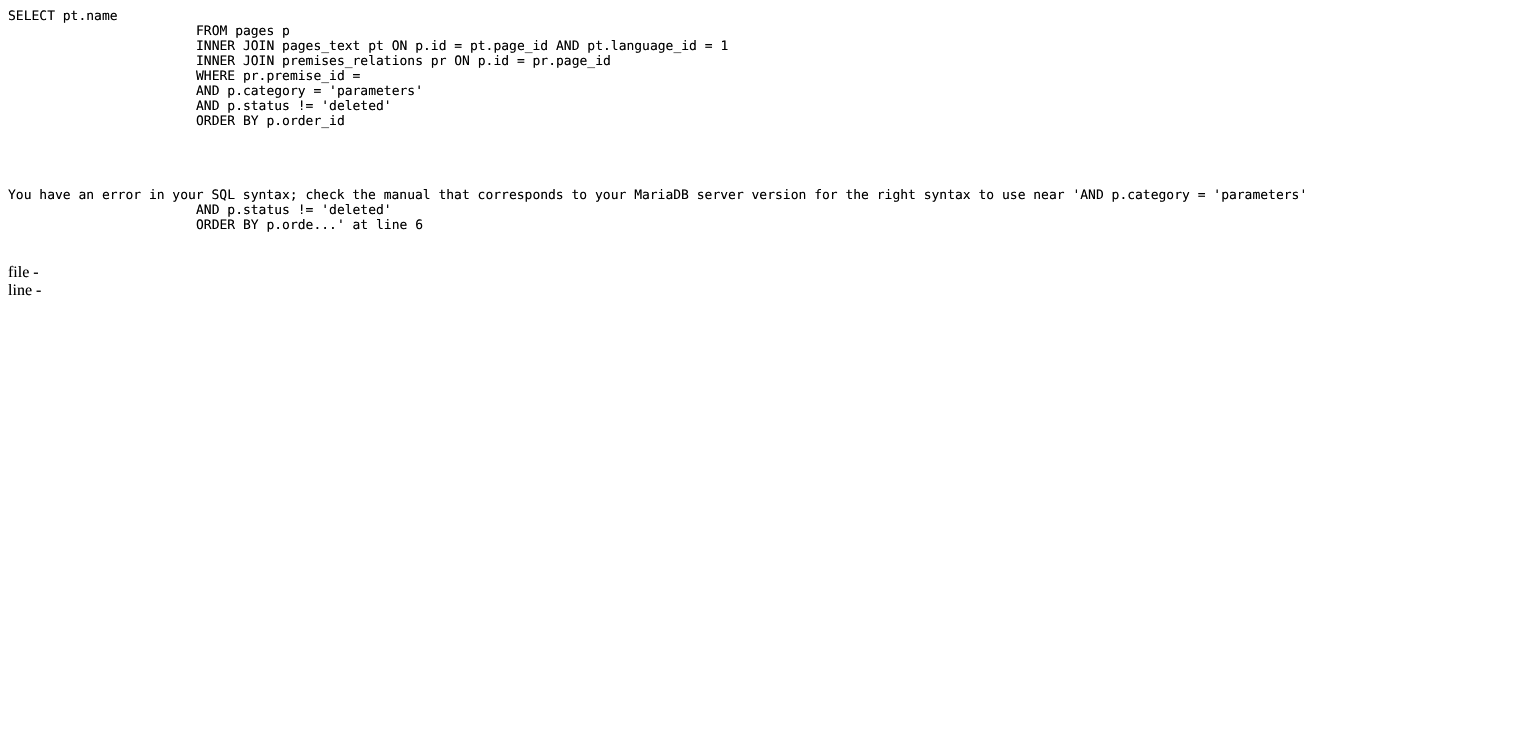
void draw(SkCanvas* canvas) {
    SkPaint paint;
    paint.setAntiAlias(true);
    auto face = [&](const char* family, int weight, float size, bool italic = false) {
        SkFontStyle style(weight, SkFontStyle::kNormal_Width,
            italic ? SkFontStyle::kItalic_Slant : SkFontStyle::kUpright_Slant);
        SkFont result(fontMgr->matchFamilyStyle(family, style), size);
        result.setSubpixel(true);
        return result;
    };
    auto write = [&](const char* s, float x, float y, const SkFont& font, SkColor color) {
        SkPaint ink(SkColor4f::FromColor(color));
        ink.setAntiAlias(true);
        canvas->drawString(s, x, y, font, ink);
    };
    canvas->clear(SK_ColorWHITE);
    auto kFont1 = face("DejaVu Sans Mono", 400, 13);
    write("SELECT pt.name", 8, 20, kFont1, SK_ColorBLACK);
    write("FROM pages p", 196, 35, kFont1, SK_ColorBLACK);
    write("INNER JOIN pages_text pt ON p.id = pt.page_id AND pt.language_id = 1", 196, 50, kFont1, SK_ColorBLACK);
    write("INNER JOIN premises_relations pr ON p.id = pr.page_id", 196, 65, kFont1, SK_ColorBLACK);
    write("WHERE pr.premise_id =", 196, 80, kFont1, SK_ColorBLACK);
    write("AND p.category = 'parameters'", 196, 95, kFont1, SK_ColorBLACK);
    write("AND p.status != 'deleted'", 196, 110, kFont1, SK_ColorBLACK);
    write("ORDER BY p.order_id", 196, 125, kFont1, SK_ColorBLACK);
    write("You have an error in your SQL syntax; check the manual that corresponds to your MariaDB server version for the right syntax to use near 'AND p.category = 'parameters'", 8, 199, kFont1, SK_ColorBLACK);
    write("AND p.status != 'deleted'", 196, 214, kFont1, SK_ColorBLACK);
    write("ORDER BY p.orde...' at line 6", 196, 229, kFont1, SK_ColorBLACK);
    auto kFont2 = face("Liberation Serif", 400, 16);
    write("file -", 8, 277, kFont2, SK_ColorBLACK);
    write("line -", 8, 295, kFont2, SK_ColorBLACK);
}
